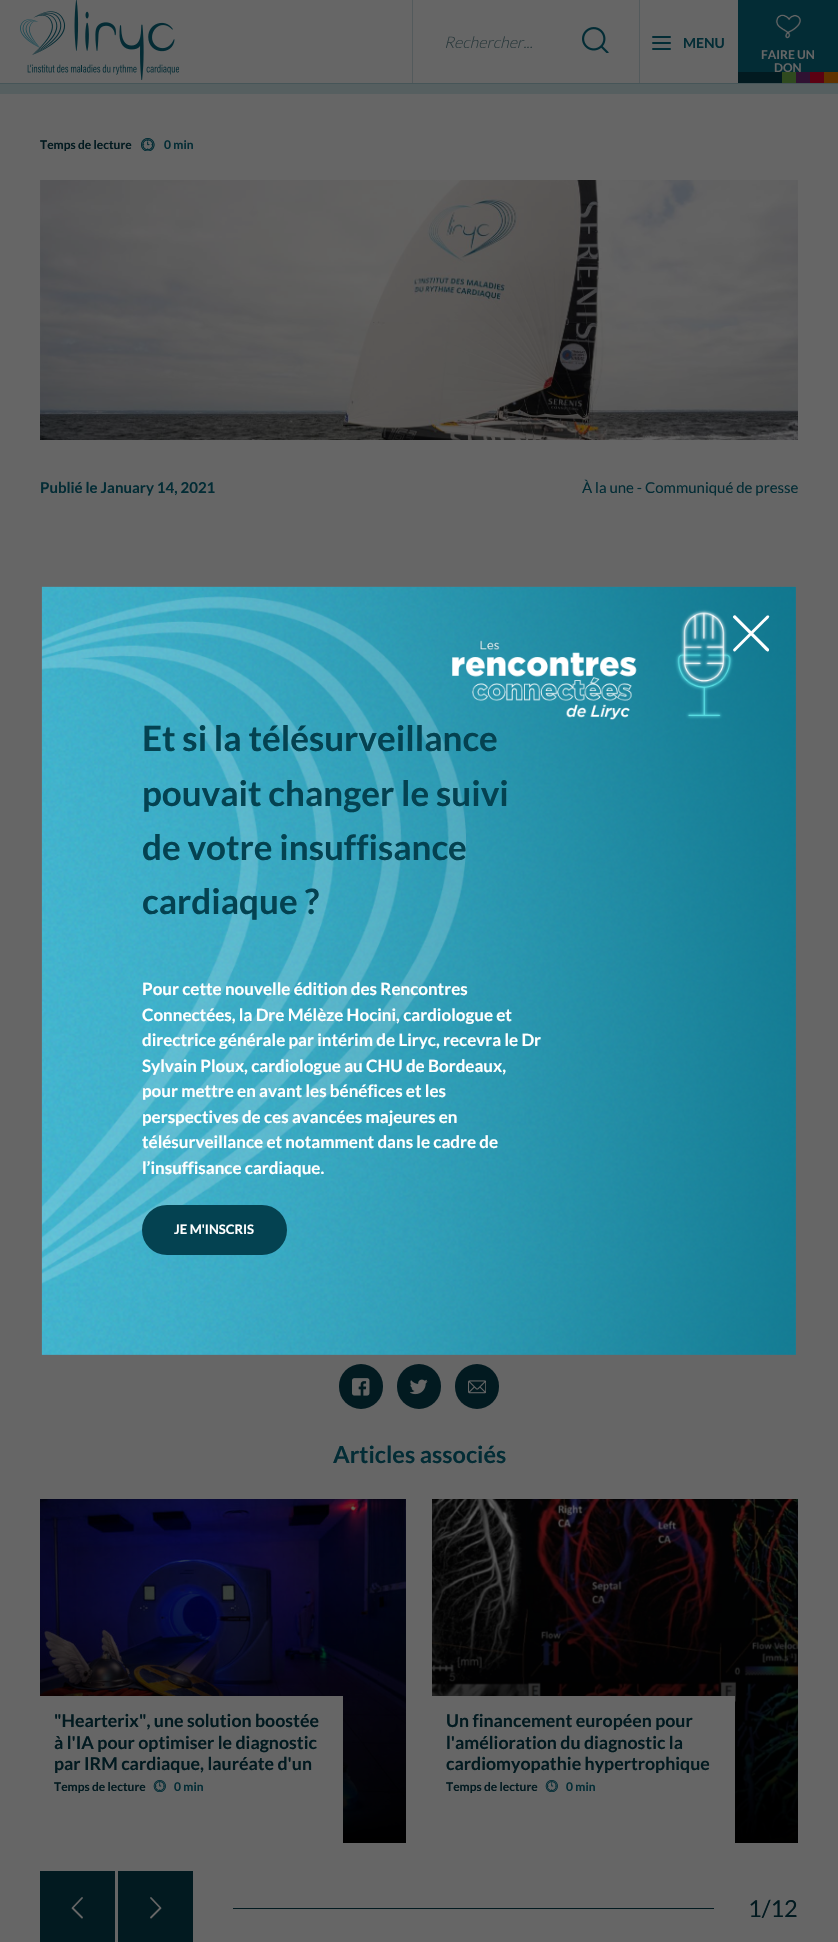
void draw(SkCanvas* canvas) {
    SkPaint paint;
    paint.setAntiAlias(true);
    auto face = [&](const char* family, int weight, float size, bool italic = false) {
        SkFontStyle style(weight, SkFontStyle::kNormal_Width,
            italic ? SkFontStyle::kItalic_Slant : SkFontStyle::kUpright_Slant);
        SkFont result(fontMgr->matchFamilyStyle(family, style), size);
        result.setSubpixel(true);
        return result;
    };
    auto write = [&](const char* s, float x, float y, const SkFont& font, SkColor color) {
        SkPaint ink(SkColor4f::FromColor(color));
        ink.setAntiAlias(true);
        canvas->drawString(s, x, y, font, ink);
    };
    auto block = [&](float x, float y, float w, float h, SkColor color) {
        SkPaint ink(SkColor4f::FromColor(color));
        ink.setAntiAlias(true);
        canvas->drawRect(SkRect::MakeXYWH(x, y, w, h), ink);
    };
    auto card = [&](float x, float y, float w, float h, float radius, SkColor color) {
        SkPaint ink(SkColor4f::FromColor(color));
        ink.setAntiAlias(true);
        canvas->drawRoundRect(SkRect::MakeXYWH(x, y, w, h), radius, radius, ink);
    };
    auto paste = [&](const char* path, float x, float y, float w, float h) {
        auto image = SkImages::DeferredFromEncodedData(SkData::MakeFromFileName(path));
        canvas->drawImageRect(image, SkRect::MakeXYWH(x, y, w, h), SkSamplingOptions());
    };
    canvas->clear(SkColorSetRGB(102, 102, 102));
    paste("pic1.png", 20, 0, 159, 80);
    block(412, 0, 1, 83, SkColorSetRGB(83, 90, 92));
    auto kFont1 = face("Lato", 300, 16, true);
    write("Rechercher...", 444, 48, kFont1, SkColorSetRGB(42, 57, 60));
    paste("pic2.png", 582, 27, 27, 26);
    block(639, 0, 1, 83, SkColorSetRGB(83, 90, 92));
    card(652, 36, 19, 2, 1, SkColorSetRGB(3, 44, 53));
    card(652, 42, 19, 2, 1, SkColorSetRGB(3, 44, 53));
    card(652, 48, 19, 2, 1, SkColorSetRGB(3, 44, 53));
    auto kFont2 = face("Lato", 700, 14);
    write("MENU", 683, 48, kFont2, SkColorSetRGB(3, 44, 53));
    block(738, 0, 100, 72, SkColorSetRGB(3, 44, 53));
    paste("pic3.png", 775, 14, 26, 25);
    auto kFont3 = face("Lato", 700, 12);
    write("FAIRE UN", 761, 59, kFont3, SkColorSetRGB(102, 102, 102));
    write("DON", 774, 72, kFont3, SkColorSetRGB(102, 102, 102));
    block(738, 72, 44, 11, SkColorSetRGB(2, 26, 32));
    block(782, 72, 14, 11, SkColorSetRGB(47, 74, 31));
    block(796, 72, 14, 11, SkColorSetRGB(48, 18, 50));
    block(810, 72, 14, 11, SkColorSetRGB(91, 1, 18));
    block(824, 72, 14, 11, SkColorSetRGB(96, 50, 0));
    block(0, 83, 838, 1, SkColorSetRGB(70, 85, 88));
    block(0, 84, 838, 10, SkColorSetRGB(86, 95, 96));
    write("Temps de lecture", 40, 149, kFont3, SkColorSetRGB(2, 26, 32));
    paste("pic4.png", 141, 138, 14, 13);
    write("0 min", 164, 149, kFont3, SkColorSetRGB(3, 44, 53));
    paste("pic5.png", 40, 180, 758, 260);
    auto kFont4 = face("Lato", 700, 15);
    write("Publié le January 14, 2021", 40, 493, kFont4, SkColorSetRGB(3, 44, 53));
    auto kFont5 = face("Lato", 400, 15);
    write("À la une - Communiqué de presse", 582, 493, kFont5, SkColorSetRGB(3, 44, 53));
    card(339, 1364, 44, 45, 22, SkColorSetRGB(2, 26, 32));
    paste("pic6.png", 352, 1378, 18, 18);
    card(397, 1364, 44, 45, 22, SkColorSetRGB(2, 26, 32));
    paste("pic7.png", 410, 1379, 18, 16);
    card(455, 1364, 44, 45, 22, SkColorSetRGB(2, 26, 32));
    paste("pic8.png", 468, 1380, 18, 14);
    auto kFont6 = face("Lato", 700, 23.5f);
    write("Articles associés", 333, 1463, kFont6, SkColorSetRGB(3, 44, 53));
    paste("pic9.png", 40, 1499, 366, 344);
    block(40, 1696, 303, 147, SkColorSetRGB(102, 102, 102));
    auto kFont7 = face("Lato", 700, 17.75f);
    write("\"Hearterix\", une solution boostée", 54, 1727, kFont7, SkColorSetRGB(2, 26, 32));
    write("à l'IA pour optimiser le diagnostic", 54, 1749, kFont7, SkColorSetRGB(2, 26, 32));
    write("par IRM cardiaque, lauréate d'un", 54, 1770, kFont7, SkColorSetRGB(2, 26, 32));
    write("Temps de lecture", 54, 1791, kFont3, SkColorSetRGB(2, 26, 32));
    paste("pic10.png", 153, 1780, 13, 12);
    write("0 min", 174, 1791, kFont3, SkColorSetRGB(3, 44, 53));
    paste("pic11.png", 432, 1499, 366, 344);
    block(432, 1696, 303, 147, SkColorSetRGB(102, 102, 102));
    write("Un financement européen pour", 446, 1727, kFont7, SkColorSetRGB(2, 26, 32));
    write("l'amélioration du diagnostic la", 446, 1749, kFont7, SkColorSetRGB(2, 26, 32));
    write("cardiomyopathie hypertrophique", 446, 1770, kFont7, SkColorSetRGB(2, 26, 32));
    write("Temps de lecture", 446, 1791, kFont3, SkColorSetRGB(2, 26, 32));
    paste("pic10.png", 545, 1780, 13, 12);
    write("0 min", 566, 1791, kFont3, SkColorSetRGB(3, 44, 53));
    block(233, 1908, 481, 1, SkColorSetRGB(2, 26, 32));
    block(40, 1871, 75, 71, SkColorSetRGB(2, 26, 32));
    paint.setStyle(SkPaint::kStroke_Style);
    paint.setStrokeWidth(1.8f);
    paint.setStrokeCap(SkPaint::kRound_Cap);
    paint.setStrokeJoin(SkPaint::kRound_Join);
    paint.setColor(SkColorSetRGB(102, 102, 102));
    canvas->drawPath(SkPathBuilder().moveTo(82, 1898).lineTo(72.5f, 1908).lineTo(82, 1917.5f).detach(), paint);
    block(118, 1871, 75, 71, SkColorSetRGB(2, 26, 32));
    canvas->drawPath(SkPathBuilder().moveTo(151, 1898).lineTo(160.5f, 1908).lineTo(151, 1917.5f).detach(), paint);
    auto kFont8 = face("Lato", 400, 23.5f);
    write("1/12", 748, 1917, kFont8, SkColorSetRGB(2, 26, 32));
    paste("pic12.png", 41, 586, 755, 769);
    paint.setStyle(SkPaint::kFill_Style);
    paint.setColor(SK_ColorWHITE);
    canvas->drawPath(SkPathBuilder().moveTo(735.5f, 615.5f).lineTo(769, 649).lineTo(769, 650.5f).cubicTo(768, 653.5f, 765, 649.5f, 761, 645.5f).lineTo(733, 617.5f).cubicTo(732.5f, 616, 734.5f, 614.5f, 735.5f, 615.5f).close().detach(), paint);
    canvas->drawPath(SkPathBuilder().moveTo(733.5f, 649).lineTo(767, 615.5f).lineTo(768.5f, 615.5f).cubicTo(771, 616.5f, 767, 619.5f, 763, 623.5f).lineTo(735, 651.5f).cubicTo(733.5f, 652, 732.5f, 650, 733.5f, 649).close().detach(), paint);
    auto kFont9 = face("Lato", 700, 35);
    write("Et si la télésurveillance", 142, 751, kFont9, SkColorSetRGB(4, 66, 81));
    write("pouvait changer le suivi", 142, 806, kFont9, SkColorSetRGB(4, 66, 81));
    write("de votre insuffisance", 142, 860, kFont9, SkColorSetRGB(4, 66, 81));
    write("cardiaque ?", 142, 914, kFont9, SkColorSetRGB(4, 66, 81));
    auto kFont10 = face("Lato", 700, 17);
    write("Pour cette nouvelle édition des Rencontres", 142, 995, kFont10, SK_ColorWHITE);
    write("Connectées, la Dre Mélèze Hocini, cardiologue et", 142, 1021, kFont10, SK_ColorWHITE);
    write("directrice générale par intérim de Liryc, recevra le Dr", 142, 1046, kFont10, SK_ColorWHITE);
    write("Sylvain Ploux, cardiologue au CHU de Bordeaux,", 142, 1072, kFont10, SK_ColorWHITE);
    write("pour mettre en avant les bénéfices et les", 142, 1097, kFont10, SK_ColorWHITE);
    write("perspectives de ces avancées majeures en", 142, 1123, kFont10, SK_ColorWHITE);
    write("télésurveillance et notamment dans le cadre de", 142, 1148, kFont10, SK_ColorWHITE);
    write("l’insuffisance cardiaque.", 142, 1174, kFont10, SK_ColorWHITE);
    paint.setColor(SkColorSetRGB(4, 66, 81));
    canvas->drawRoundRect(SkRect::MakeXYWH(143, 1206, 143, 48), 24, 24, paint);
    paint.setStyle(SkPaint::kStroke_Style);
    paint.setStrokeWidth(2);
    paint.setStrokeCap(SkPaint::kButt_Cap);
    paint.setStrokeJoin(SkPaint::kMiter_Join);
    canvas->drawRoundRect(SkRect::MakeXYWH(143, 1206, 143, 48), 24, 24, paint);
    auto kFont11 = face("Lato", 700, 13);
    write("JE M'INSCRIS", 174, 1234, kFont11, SK_ColorWHITE);
}
